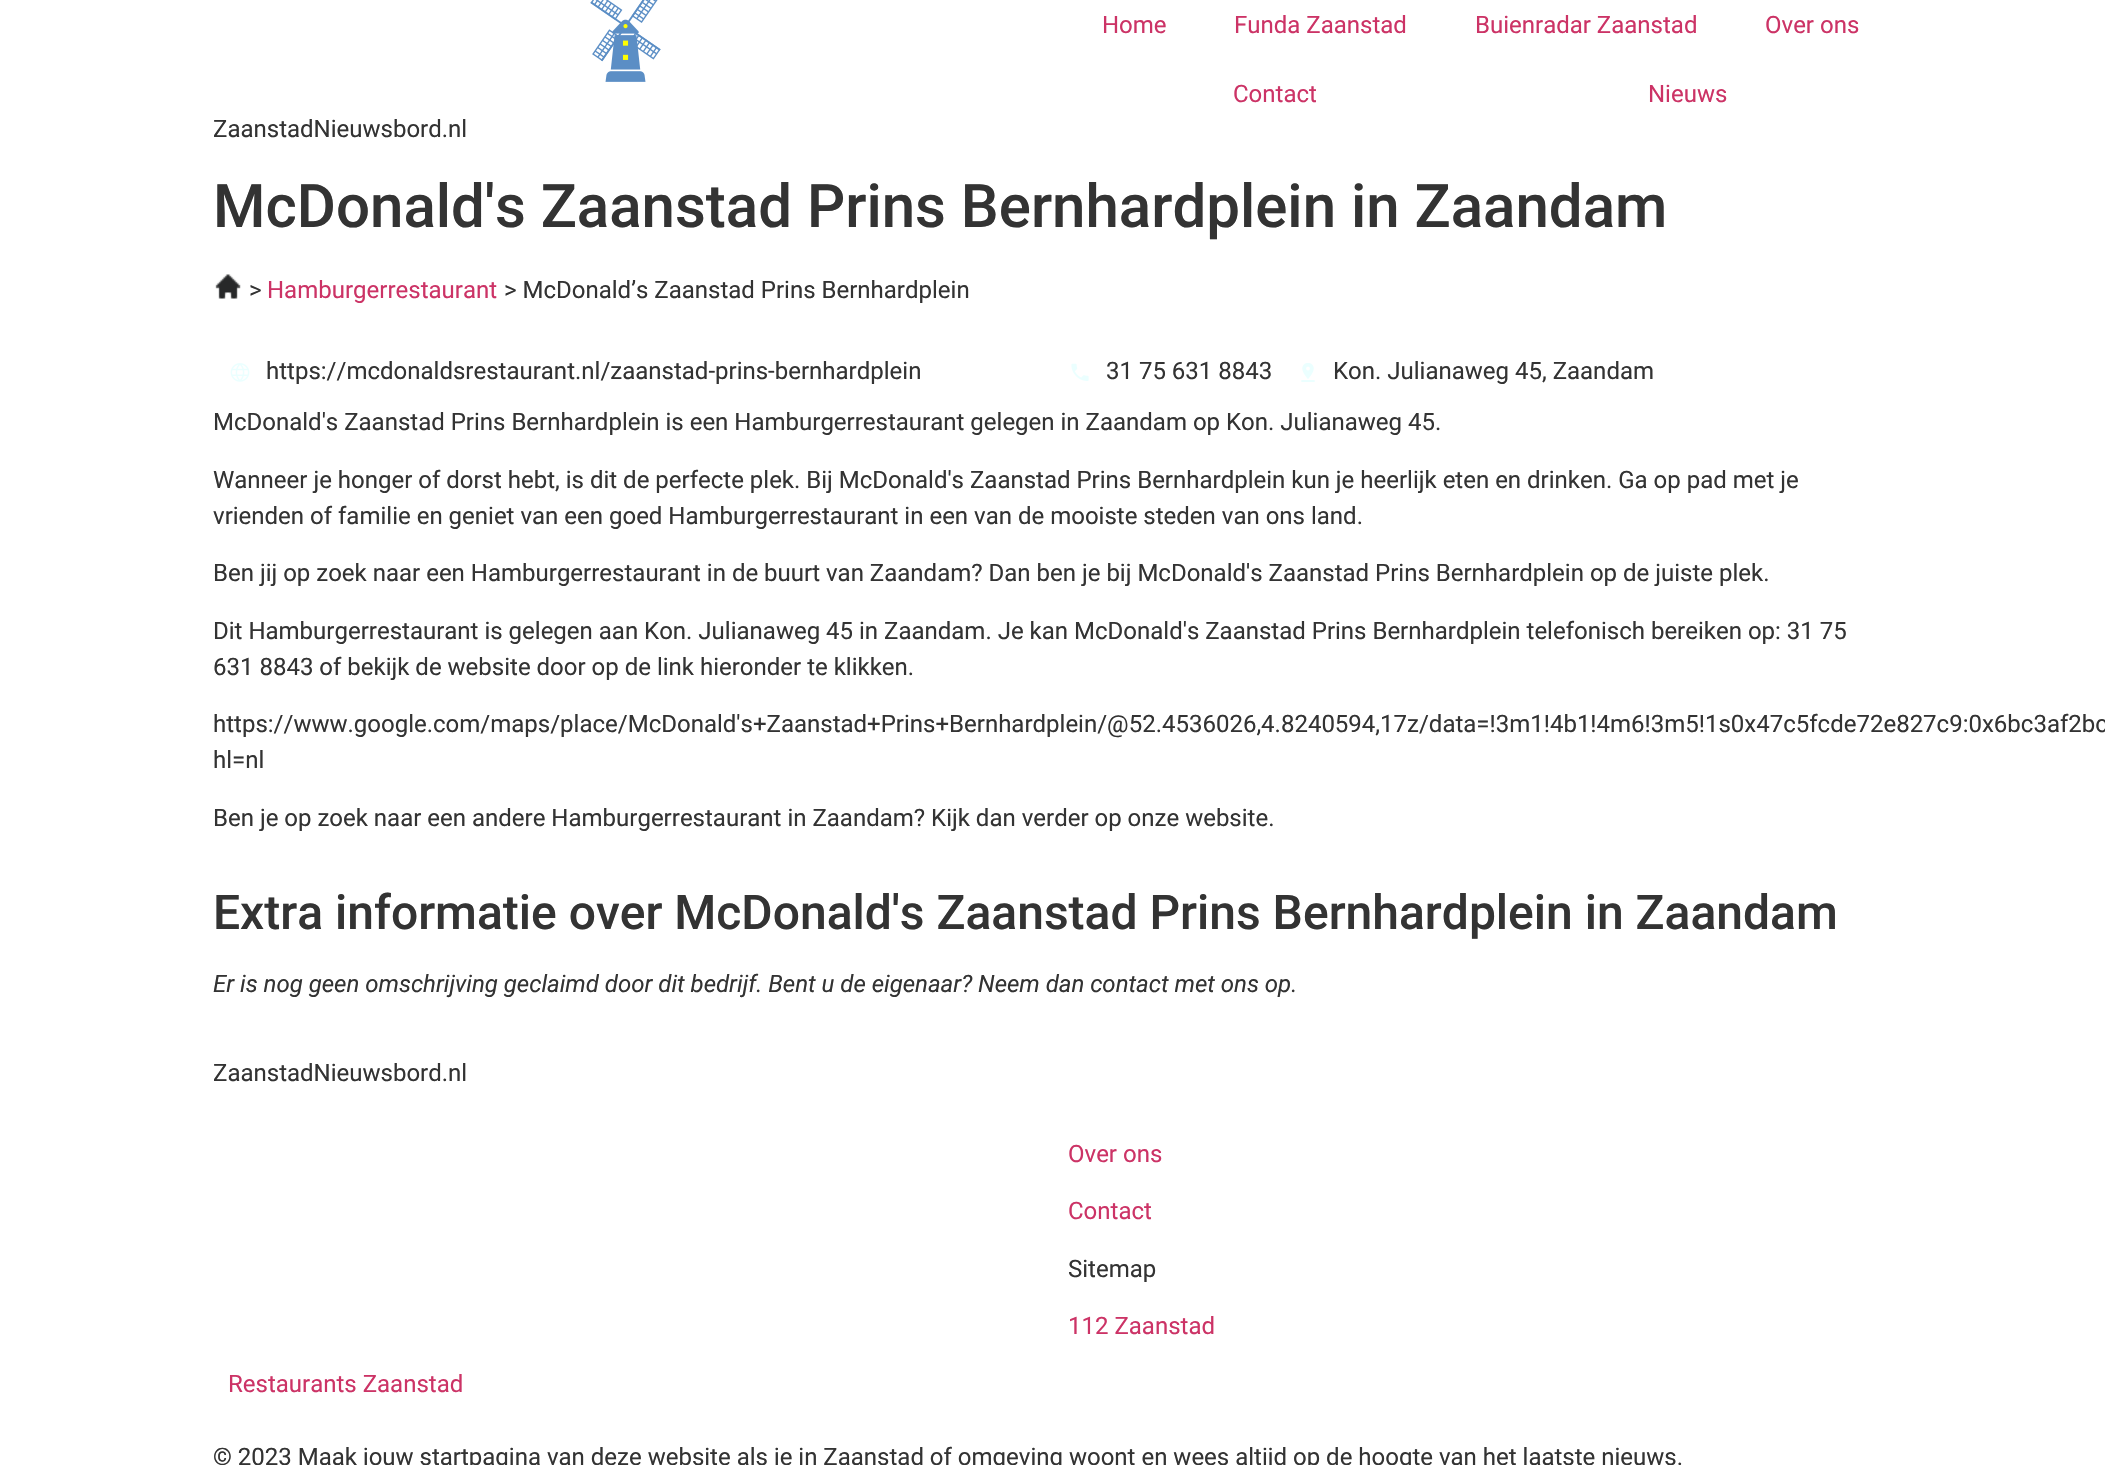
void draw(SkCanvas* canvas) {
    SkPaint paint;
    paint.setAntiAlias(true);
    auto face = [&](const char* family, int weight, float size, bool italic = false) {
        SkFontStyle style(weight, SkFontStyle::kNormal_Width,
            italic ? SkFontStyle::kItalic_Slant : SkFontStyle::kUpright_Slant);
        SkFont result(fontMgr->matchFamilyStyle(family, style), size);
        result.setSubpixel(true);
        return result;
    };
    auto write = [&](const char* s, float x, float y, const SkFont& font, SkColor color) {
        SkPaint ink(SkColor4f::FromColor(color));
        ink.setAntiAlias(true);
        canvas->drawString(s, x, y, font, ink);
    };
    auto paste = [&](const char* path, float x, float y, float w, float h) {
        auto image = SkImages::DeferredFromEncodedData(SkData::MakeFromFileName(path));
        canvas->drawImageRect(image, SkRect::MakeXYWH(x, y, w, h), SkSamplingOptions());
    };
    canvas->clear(SK_ColorWHITE);
    auto kFont1 = face("Roboto", 400, 24);
    write("Home", 1102, 33, kFont1, SkColorSetRGB(204, 51, 102));
    write("Funda Zaanstad", 1234, 33, kFont1, SkColorSetRGB(204, 51, 102));
    write("Buienradar Zaanstad", 1475, 33, kFont1, SkColorSetRGB(204, 51, 102));
    write("Over ons", 1765, 33, kFont1, SkColorSetRGB(204, 51, 102));
    write("Contact", 1233, 102, kFont1, SkColorSetRGB(204, 51, 102));
    write("Nieuws", 1648, 102, kFont1, SkColorSetRGB(204, 51, 102));
    paste("pic1.png", 590, 0, 71, 82);
    write("ZaanstadNieuwsbord.nl", 213, 137, kFont1, SkColorSetRGB(51, 51, 51));
    auto kFont2 = face("Roboto", 500, 60);
    write("McDonald's Zaanstad Prins Bernhardplein in Zaandam", 213, 227, kFont2, SkColorSetRGB(51, 51, 51));
    paste("pic2.png", 215, 274, 26, 25);
    write(">", 249, 298, kFont1, SkColorSetRGB(51, 51, 51));
    write("Hamburgerrestaurant", 267, 298, kFont1, SkColorSetRGB(204, 51, 102));
    write("> McDonald’s Zaanstad Prins Bernhardplein", 504, 298, kFont1, SkColorSetRGB(51, 51, 51));
    paste("pic3.png", 230, 363, 20, 19);
    write("https://mcdonaldsrestaurant.nl/zaanstad-prins-bernhardplein", 266, 379, kFont1, SkColorSetRGB(51, 51, 51));
    paste("pic4.png", 1071, 363, 18, 18);
    write("31 75 631 8843", 1106, 379, kFont1, SkColorSetRGB(51, 51, 51));
    paste("pic5.png", 1301, 363, 14, 19);
    write("Kon. Julianaweg 45, Zaandam", 1333, 379, kFont1, SkColorSetRGB(51, 51, 51));
    write("McDonald's Zaanstad Prins Bernhardplein is een Hamburgerrestaurant gelegen in Zaandam op Kon. Julianaweg 45.", 213, 430, kFont1, SkColorSetRGB(51, 51, 51));
    write("Wanneer je honger of dorst hebt, is dit de perfecte plek. Bij McDonald's Zaanstad Prins Bernhardplein kun je heerlijk eten en drinken. Ga op pad met je", 213, 488, kFont1, SkColorSetRGB(51, 51, 51));
    write("vrienden of familie en geniet van een goed Hamburgerrestaurant in een van de mooiste steden van ons land.", 213, 524, kFont1, SkColorSetRGB(51, 51, 51));
    write("Ben jij op zoek naar een Hamburgerrestaurant in de buurt van Zaandam? Dan ben je bij McDonald's Zaanstad Prins Bernhardplein op de juiste plek.", 213, 581, kFont1, SkColorSetRGB(51, 51, 51));
    write("Dit Hamburgerrestaurant is gelegen aan Kon. Julianaweg 45 in Zaandam. Je kan McDonald's Zaanstad Prins Bernhardplein telefonisch bereiken op: 31 75", 213, 639, kFont1, SkColorSetRGB(51, 51, 51));
    write("631 8843 of bekijk de website door op de link hieronder te klikken.", 213, 675, kFont1, SkColorSetRGB(51, 51, 51));
    write("https://www.google.com/maps/place/McDonald's+Zaanstad+Prins+Bernhardplein/@52.4536026,4.8240594,17z/data=!3m1!4b1!4m6!3m5!1s0x47c5fcde72e827c9:0x6bc3af2bc", 213, 732, kFont1, SkColorSetRGB(51, 51, 51));
    write("hl=nl", 213, 768, kFont1, SkColorSetRGB(51, 51, 51));
    write("Ben je op zoek naar een andere Hamburgerrestaurant in Zaandam? Kijk dan verder op onze website.", 213, 826, kFont1, SkColorSetRGB(51, 51, 51));
    auto kFont3 = face("Roboto", 500, 48);
    write("Extra informatie over McDonald's Zaanstad Prins Bernhardplein in Zaandam", 213, 929, kFont3, SkColorSetRGB(51, 51, 51));
    auto kFont4 = face("Roboto", 400, 24, true);
    write("Er is nog geen omschrijving geclaimd door dit bedrijf. Bent u de eigenaar? Neem dan contact met ons op.", 213, 992, kFont4, SkColorSetRGB(51, 51, 51));
    write("ZaanstadNieuwsbord.nl", 213, 1081, kFont1, SkColorSetRGB(51, 51, 51));
    write("Over ons", 1068, 1162, kFont1, SkColorSetRGB(204, 51, 102));
    write("Contact", 1068, 1219, kFont1, SkColorSetRGB(204, 51, 102));
    write("Sitemap", 1068, 1277, kFont1, SkColorSetRGB(51, 51, 51));
    write("112 Zaanstad", 1068, 1334, kFont1, SkColorSetRGB(204, 51, 102));
    write("Restaurants Zaanstad", 228, 1392, kFont1, SkColorSetRGB(204, 51, 102));
    write("© 2023 Maak jouw startpagina van deze website als je in Zaanstad of omgeving woont en wees altijd op de hoogte van het laatste nieuws.", 213, 1465, kFont1, SkColorSetRGB(51, 51, 51));
}
